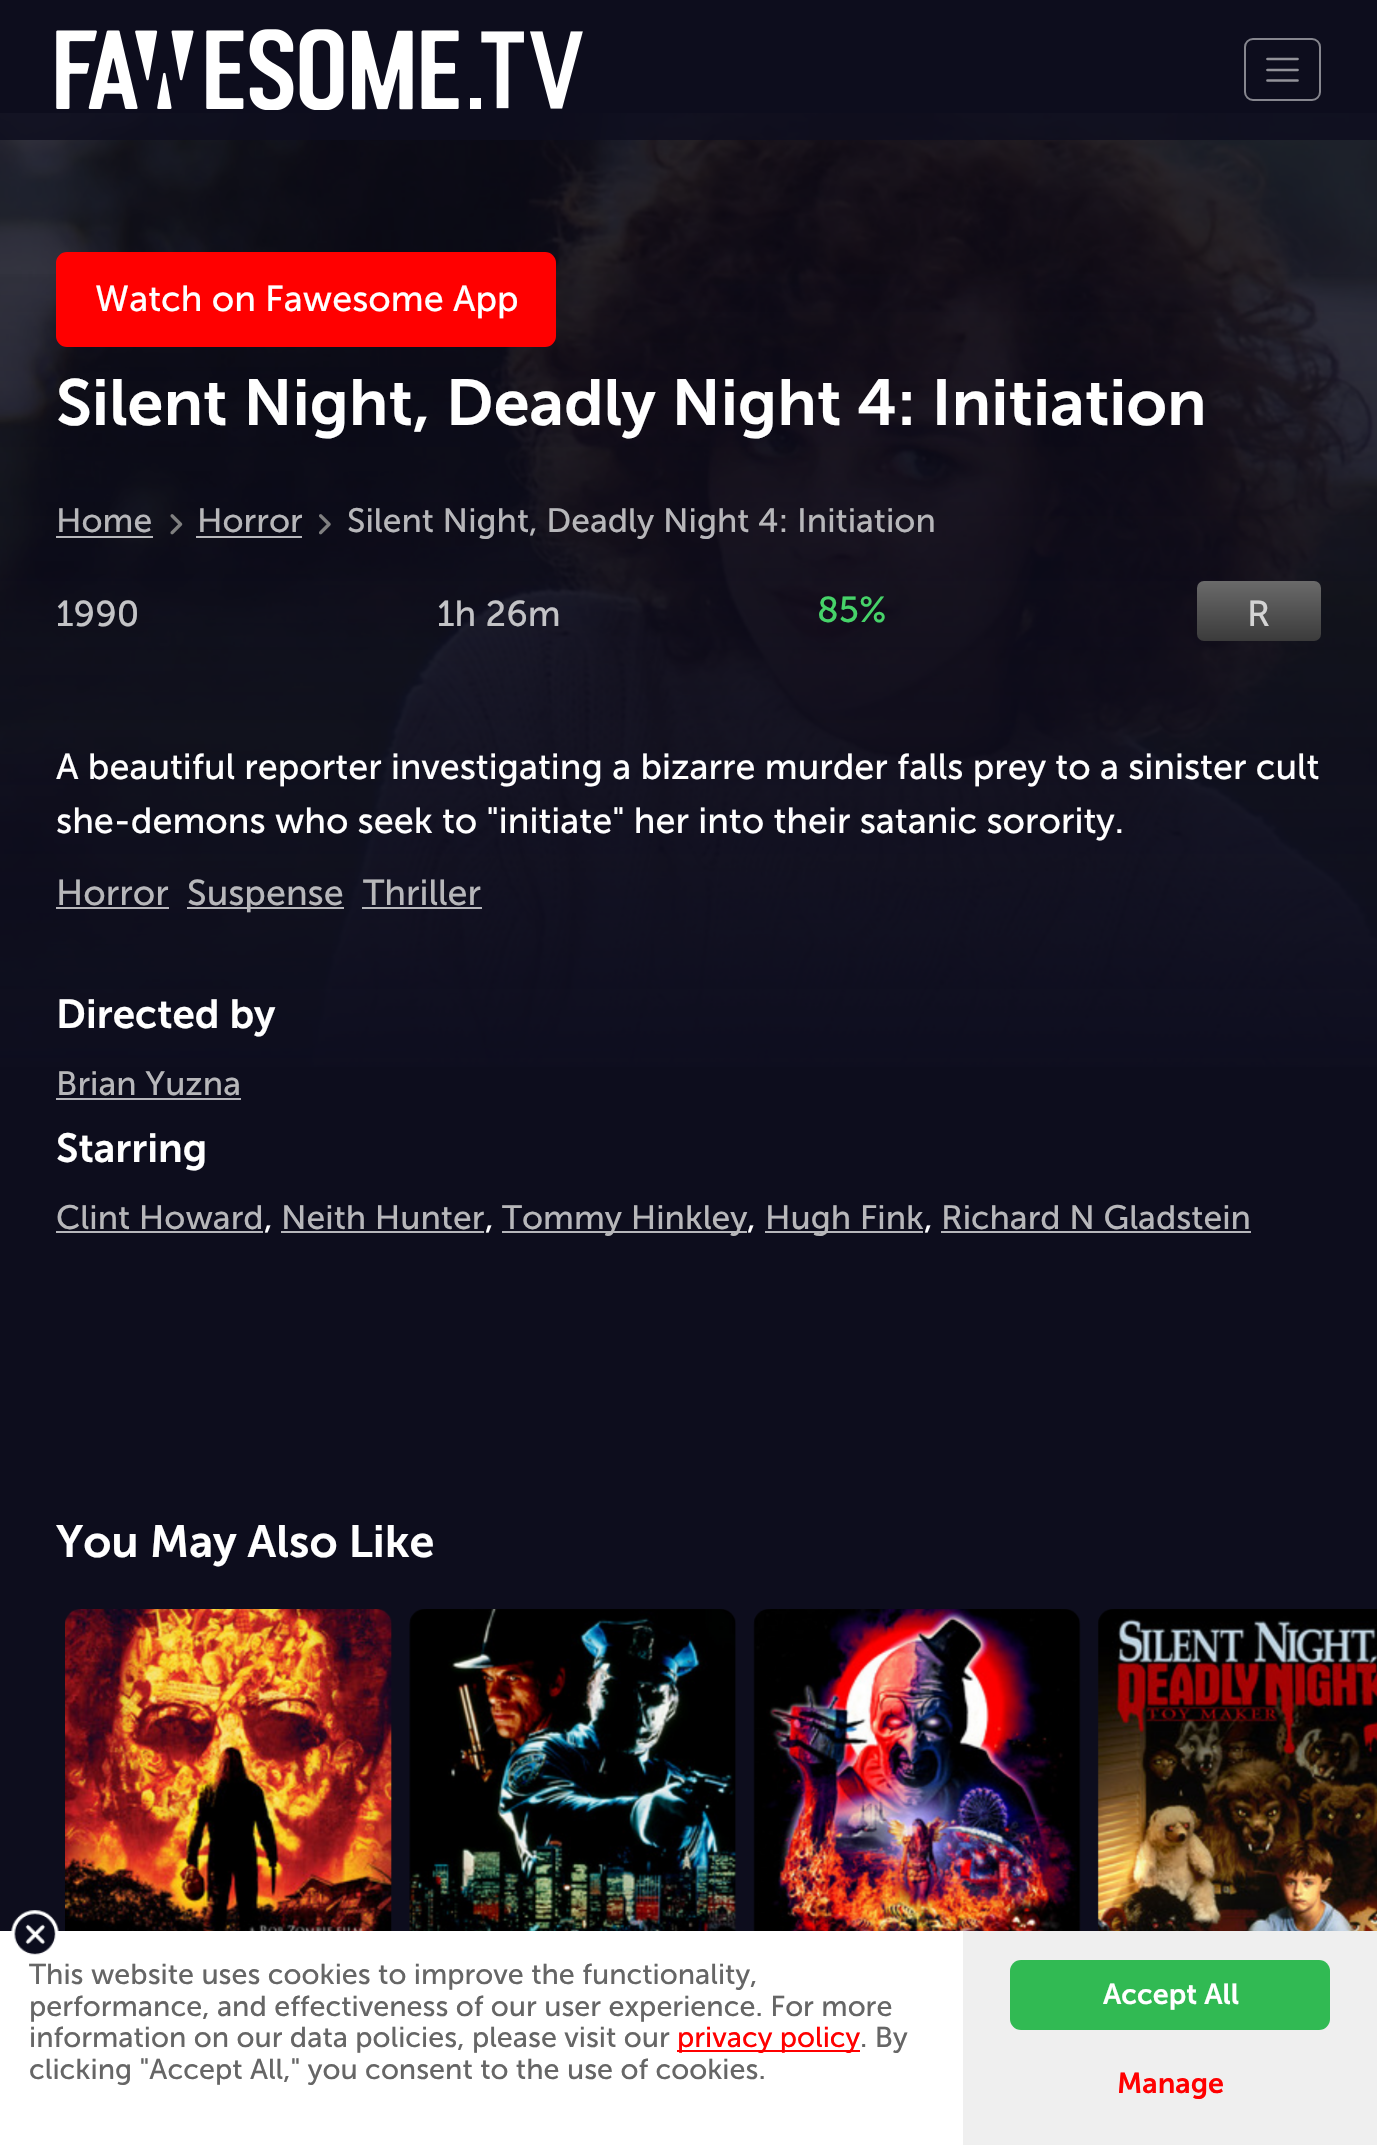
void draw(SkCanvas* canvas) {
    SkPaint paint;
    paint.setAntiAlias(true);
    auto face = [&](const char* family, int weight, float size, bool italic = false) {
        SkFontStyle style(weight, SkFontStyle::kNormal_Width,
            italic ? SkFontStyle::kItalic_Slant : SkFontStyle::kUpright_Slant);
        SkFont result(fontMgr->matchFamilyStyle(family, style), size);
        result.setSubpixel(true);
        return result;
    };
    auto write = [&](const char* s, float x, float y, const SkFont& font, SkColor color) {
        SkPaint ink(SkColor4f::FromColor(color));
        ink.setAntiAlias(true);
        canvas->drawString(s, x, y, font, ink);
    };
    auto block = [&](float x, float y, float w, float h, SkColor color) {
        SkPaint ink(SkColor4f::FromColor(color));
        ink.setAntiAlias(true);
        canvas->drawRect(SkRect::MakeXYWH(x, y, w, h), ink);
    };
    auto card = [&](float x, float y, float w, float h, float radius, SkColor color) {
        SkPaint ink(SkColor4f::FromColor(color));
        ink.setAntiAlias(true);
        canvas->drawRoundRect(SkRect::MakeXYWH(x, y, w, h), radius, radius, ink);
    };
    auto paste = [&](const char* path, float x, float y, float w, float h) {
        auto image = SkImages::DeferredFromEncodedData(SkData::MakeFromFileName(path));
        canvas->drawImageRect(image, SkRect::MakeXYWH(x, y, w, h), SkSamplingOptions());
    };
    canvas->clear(SkColorSetRGB(13, 13, 29));
    paste("pic2.png", 0, 113, 1377, 954);
    block(0, 113, 1377, 27, SkColorSetARGB(217, 13, 13, 29));
    paste("pic1.png", 56, 29, 527, 81);
    paint.setStyle(SkPaint::kStroke_Style);
    paint.setStrokeWidth(2);
    paint.setColor(SkColorSetRGB(134, 134, 142));
    canvas->drawRoundRect(SkRect::MakeXYWH(1245, 39, 75, 61), 8, 8, paint);
    paint.setStrokeWidth(2.7f);
    paint.setStrokeCap(SkPaint::kRound_Cap);
    paint.setColor(SkColorSetRGB(146, 146, 153));
    canvas->drawPath(SkPathBuilder().moveTo(1267.5f, 59).lineTo(1297.5f, 59).moveTo(1267.5f, 70).lineTo(1297.5f, 70).moveTo(1267.5f, 80.5f).lineTo(1297.5f, 80.5f).detach(), paint);
    paint.setStyle(SkPaint::kFill_Style);
    {
        const SkColor colors[] = {SkColorSetARGB(0, 13, 13, 30), SkColorSetRGB(13, 13, 30)};
        const float stops[] = {0.1f, 1};
        const SkPoint ends[] = {{689, 112}, {689, 1091}};
        paint.setShader(SkGradientShader::MakeLinear(ends, colors, stops, 2, SkTileMode::kClamp));
        paint.setAlpha(255);
    }
    canvas->drawRect(SkRect::MakeXYWH(0, 274, 1377, 793), paint);
    paint.setShader(nullptr);
    paint.setColor(SkColorSetRGB(255, 0, 0));
    canvas->drawRoundRect(SkRect::MakeXYWH(57, 253, 498, 93), 10, 10, paint);
    paint.setStyle(SkPaint::kStroke_Style);
    paint.setStrokeWidth(2);
    paint.setStrokeCap(SkPaint::kButt_Cap);
    canvas->drawRoundRect(SkRect::MakeXYWH(57, 253, 498, 93), 10, 10, paint);
    auto kFont1 = face("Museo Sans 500", 400, 36);
    write("Watch on Fawesome App", 95, 311, kFont1, SK_ColorWHITE);
    auto kFont2 = face("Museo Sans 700", 600, 64.75f);
    write("Silent Night, Deadly Night 4: Initiation", 56, 425, kFont2, SK_ColorWHITE);
    auto kFont3 = face("Museo Sans 500", 400, 33.75f);
    write("Home", 56, 532, kFont3, SkColorSetRGB(183, 183, 186));
    block(56, 536, 97, 2, SkColorSetARGB(179, 255, 255, 255));
    paste("pic3.png", 170, 514, 13, 21);
    write("Horror", 197, 532, kFont3, SkColorSetRGB(183, 183, 186));
    block(196, 536, 106, 2, SkColorSetARGB(179, 255, 255, 255));
    paste("pic4.png", 319, 514, 12, 21);
    write("Silent Night, Deadly Night 4: Initiation", 347, 532, kFont3, SkColorSetRGB(183, 183, 186));
    write("1990", 56, 626, kFont1, SkColorSetRGB(195, 195, 198));
    write("1h 26m", 437, 626, kFont1, SkColorSetRGB(195, 195, 198));
    write("85%", 817, 622, kFont1, SkColorSetRGB(70, 211, 105));
    paint.setStyle(SkPaint::kFill_Style);
    {
        const SkColor colors[] = {SkColorSetRGB(59, 59, 59), SkColorSetRGB(106, 106, 106)};
        const float stops[] = {0, 1};
        const SkPoint ends[] = {{1259, 641}, {1259, 581}};
        paint.setShader(SkGradientShader::MakeLinear(ends, colors, stops, 2, SkTileMode::kClamp));
        paint.setAlpha(255);
    }
    canvas->drawRoundRect(SkRect::MakeXYWH(1197, 581, 124, 60), 7, 7, paint);
    write("R", 1247, 626, kFont1, SkColorSetRGB(212, 212, 212));
    write("A beautiful reporter investigating a bizarre murder falls prey to a sinister cult", 56, 779, kFont1, SK_ColorWHITE);
    write("she-demons who seek to \"initiate\" her into their satanic sorority.", 56, 833, kFont1, SK_ColorWHITE);
    write("Horror", 56, 905, kFont1, SkColorSetRGB(183, 183, 186));
    block(56, 907, 113, 2, SkColorSetRGB(183, 182, 187));
    block(187, 907, 157, 2, SkColorSetRGB(183, 183, 187));
    write("Suspense", 187, 905, kFont1, SkColorSetRGB(183, 183, 186));
    write("Thriller", 363, 905, kFont1, SkColorSetRGB(183, 183, 186));
    block(362, 907, 120, 2, SkColorSetRGB(183, 183, 188));
    auto kFont4 = face("Museo Sans 700", 600, 40.5f);
    write("Directed by", 56, 1028, kFont4, SK_ColorWHITE);
    write("Brian Yuzna", 56, 1095, kFont3, SkColorSetRGB(183, 183, 186));
    block(56, 1098, 185, 2, SkColorSetRGB(182, 182, 187));
    write("Starring", 56, 1162, kFont4, SK_ColorWHITE);
    write("Clint Howard", 56, 1229, kFont3, SkColorSetRGB(183, 183, 186));
    block(56, 1231, 207, 2, SkColorSetRGB(182, 182, 187));
    write(",", 264, 1229, kFont3, SK_ColorWHITE);
    write("Neith Hunter", 281, 1229, kFont3, SkColorSetRGB(183, 183, 186));
    block(281, 1231, 203, 2, SkColorSetRGB(182, 182, 187));
    write(",", 485, 1229, kFont3, SK_ColorWHITE);
    block(502, 1231, 245, 2, SkColorSetRGB(182, 182, 187));
    write("Tommy Hinkley", 502, 1229, kFont3, SkColorSetRGB(183, 183, 186));
    write(",", 747, 1229, kFont3, SK_ColorWHITE);
    block(765, 1231, 158, 2, SkColorSetRGB(182, 182, 187));
    write("Hugh Fink", 765, 1229, kFont3, SkColorSetRGB(183, 183, 186));
    write(",", 924, 1229, kFont3, SK_ColorWHITE);
    write("Richard N Gladstein", 941, 1229, kFont3, SkColorSetRGB(183, 183, 186));
    block(941, 1231, 310, 2, SkColorSetRGB(182, 182, 187));
    auto kFont5 = face("Museo Sans 700", 600, 45);
    write("You May Also Like", 56, 1557, kFont5, SK_ColorWHITE);
    paste("pic5.png", 65, 1609, 327, 322);
    paste("pic6.png", 409, 1609, 328, 322);
    paste("pic7.png", 753, 1609, 328, 322);
    paste("pic8.png", 1097, 1609, 280, 322);
    block(0, 1931, 963, 214, SK_ColorWHITE);
    paste("pic9.png", 11, 1910, 48, 45);
    auto kFont6 = face("Museo Sans 500", 400, 28.8f);
    write("This website uses cookies to improve the functionality,", 29, 1984, kFont6, SkColorSetRGB(102, 102, 102));
    write("performance, and effectiveness of our user experience. For more", 29, 2016, kFont6, SkColorSetRGB(102, 102, 102));
    write("information on our data policies, please visit our", 29, 2047, kFont6, SkColorSetRGB(102, 102, 102));
    block(677, 2050, 183, 2, SkColorSetRGB(255, 0, 0));
    write("privacy policy", 677, 2047, kFont6, SkColorSetRGB(255, 0, 0));
    write(". By", 860, 2047, kFont6, SkColorSetRGB(102, 102, 102));
    write("clicking \"Accept All,\" you consent to the use of cookies.", 29, 2079, kFont6, SkColorSetRGB(102, 102, 102));
    block(963, 1931, 414, 214, SkColorSetRGB(239, 239, 239));
    card(1010, 1960, 320, 70, 11, SkColorSetRGB(49, 186, 83));
    auto kFont7 = face("Museo Sans 700", 600, 28.8f);
    write("Accept All", 1103, 2004, kFont7, SK_ColorWHITE);
    write("Manage", 1117, 2093, kFont7, SkColorSetRGB(255, 0, 0));
}
